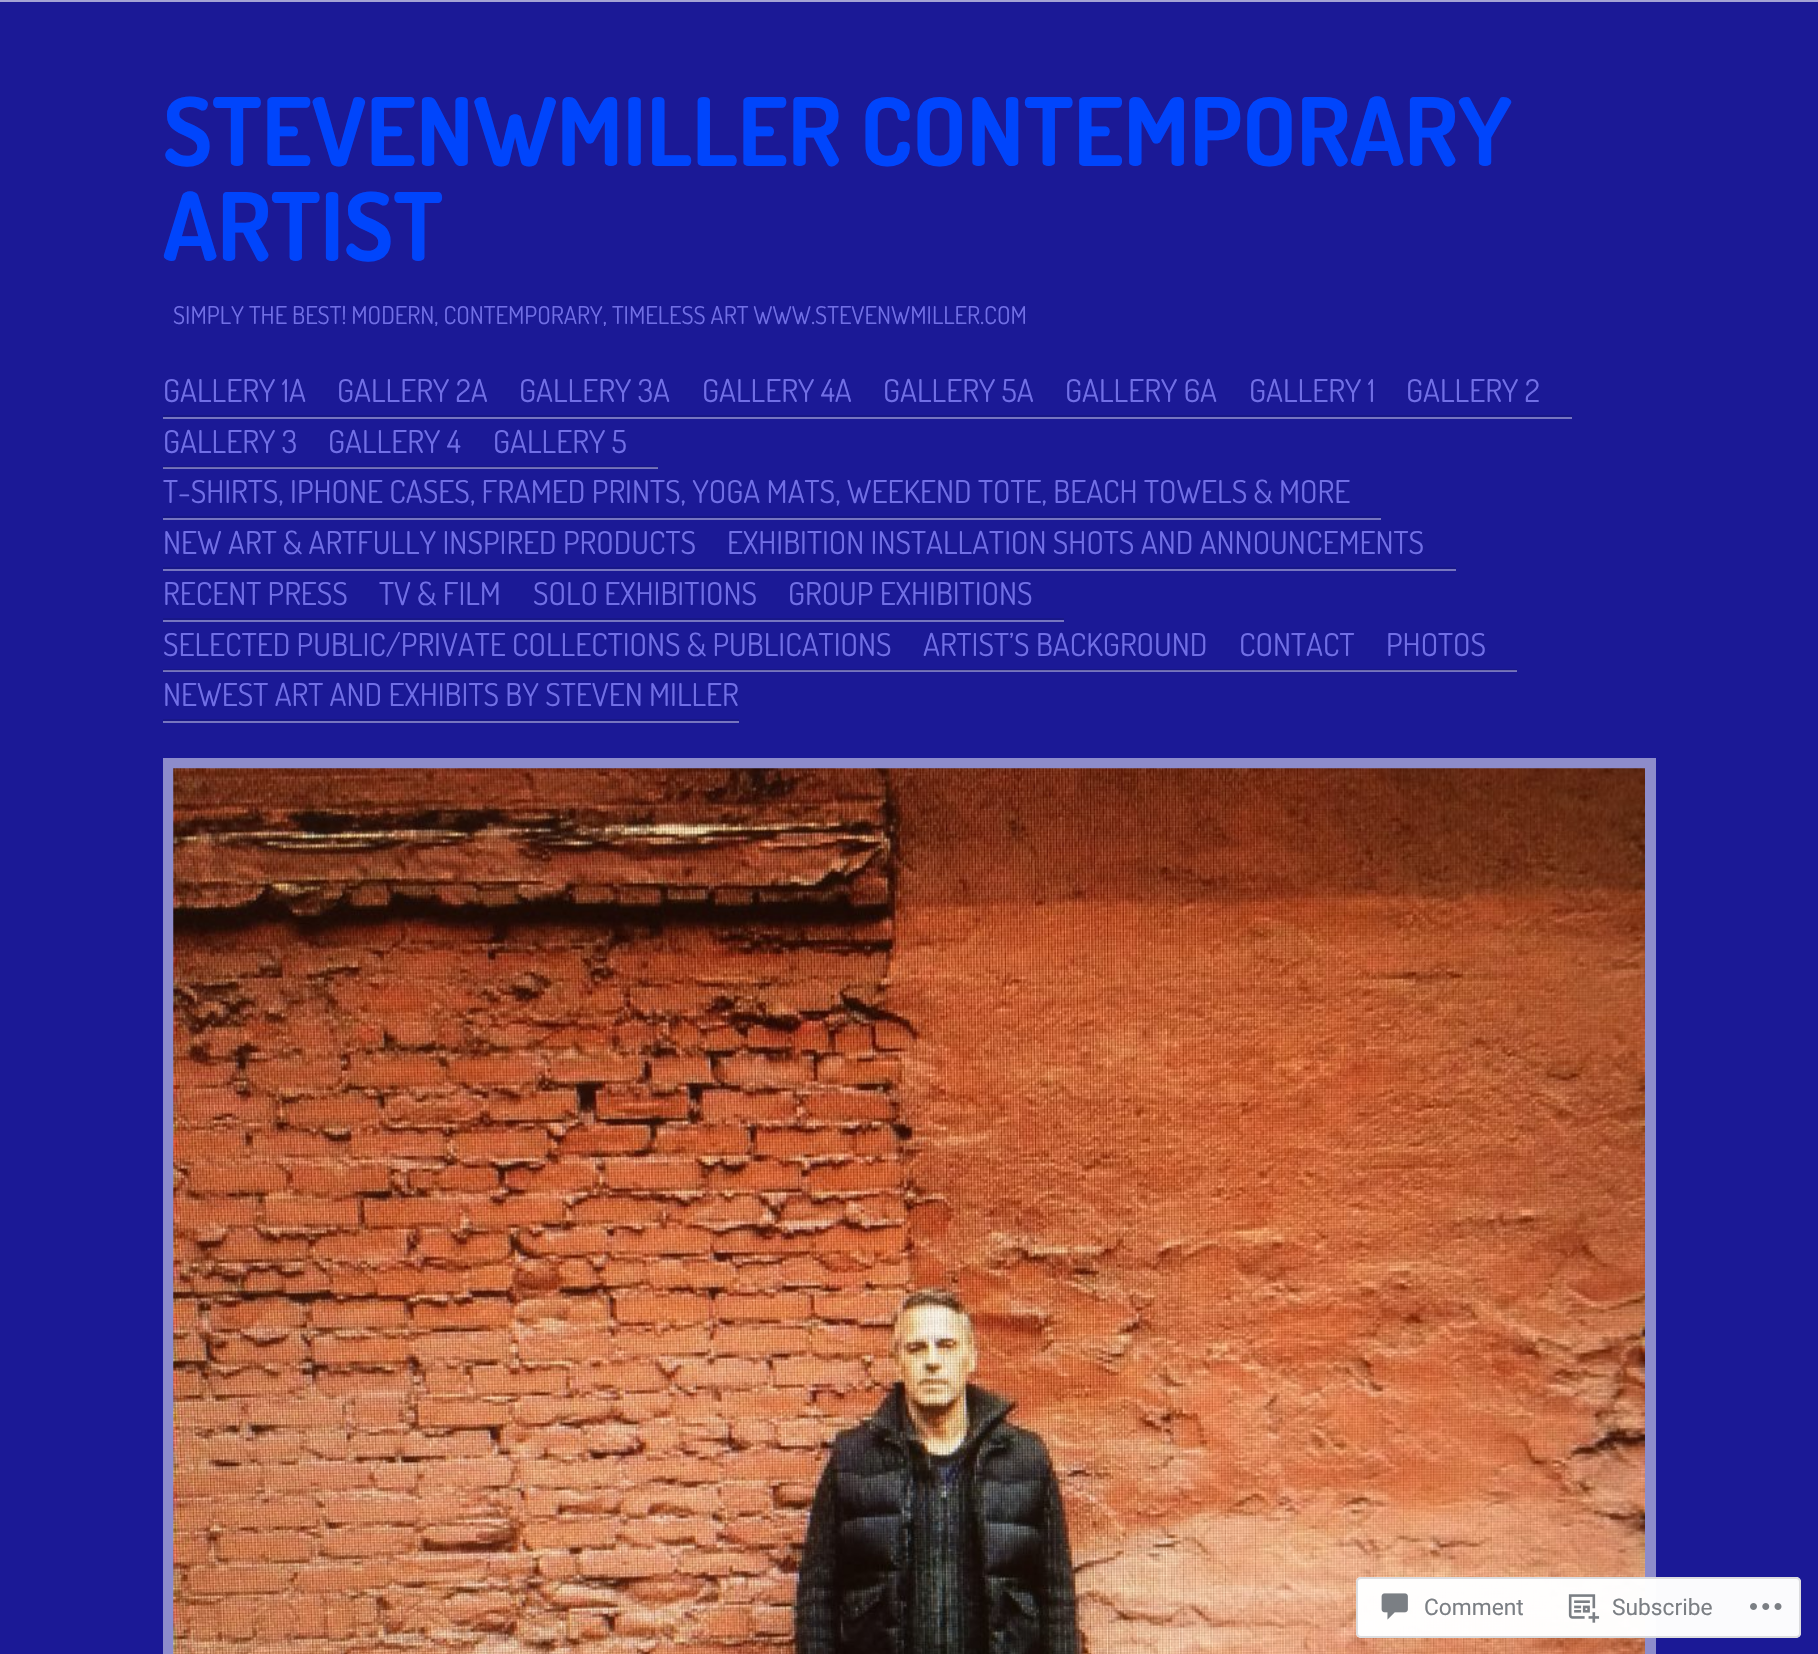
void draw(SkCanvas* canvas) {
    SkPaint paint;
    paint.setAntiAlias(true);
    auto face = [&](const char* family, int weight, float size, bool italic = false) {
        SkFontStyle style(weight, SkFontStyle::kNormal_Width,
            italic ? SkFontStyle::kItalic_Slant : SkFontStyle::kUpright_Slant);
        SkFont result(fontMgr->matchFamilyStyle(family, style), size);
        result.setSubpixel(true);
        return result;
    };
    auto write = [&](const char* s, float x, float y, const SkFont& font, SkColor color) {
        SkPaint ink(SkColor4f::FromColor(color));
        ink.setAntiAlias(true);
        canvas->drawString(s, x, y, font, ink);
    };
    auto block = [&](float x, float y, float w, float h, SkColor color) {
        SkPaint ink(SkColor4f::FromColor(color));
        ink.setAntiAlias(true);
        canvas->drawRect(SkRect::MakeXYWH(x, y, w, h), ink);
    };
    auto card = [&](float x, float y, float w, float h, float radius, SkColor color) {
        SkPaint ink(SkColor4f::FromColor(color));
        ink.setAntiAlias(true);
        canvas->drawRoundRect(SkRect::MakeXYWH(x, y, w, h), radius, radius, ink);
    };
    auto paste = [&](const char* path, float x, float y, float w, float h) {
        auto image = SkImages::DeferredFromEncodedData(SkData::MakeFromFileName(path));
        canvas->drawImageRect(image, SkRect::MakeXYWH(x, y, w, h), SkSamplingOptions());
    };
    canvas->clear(SkColorSetRGB(27, 25, 150));
    block(163, 669, 1354, 1, SkColorSetRGB(24, 23, 135));
    block(163, 466, 495, 1, SkColorSetRGB(24, 23, 135));
    block(0, 0, 1818, 2, SkColorSetRGB(164, 163, 213));
    auto kFont1 = face("Dosis", 700, 94.5f);
    write("STEVENWMILLER CONTEMPORARY", 163, 166, kFont1, SkColorSetRGB(0, 69, 252));
    write("ARTIST", 163, 261, kFont1, SkColorSetRGB(0, 69, 252));
    auto kFont2 = face("Dosis", 400, 24.5f);
    write("SIMPLY THE BEST! MODERN, CONTEMPORARY, TIMELESS ART WWW.STEVENWMILLER.COM", 173, 324, kFont2, SkColorSetRGB(113, 111, 230));
    block(163, 417, 1409, 2, SkColorSetRGB(118, 117, 192));
    block(163, 415, 1409, 2, SkColorSetRGB(24, 23, 135));
    auto kFont3 = face("Dosis", 400, 31.5f);
    write("GALLERY 1A", 163, 402, kFont3, SkColorSetRGB(113, 111, 230));
    write("GALLERY 2A", 337, 402, kFont3, SkColorSetRGB(113, 111, 230));
    write("GALLERY 3A", 519, 402, kFont3, SkColorSetRGB(113, 111, 230));
    write("GALLERY 4A", 702, 402, kFont3, SkColorSetRGB(113, 111, 230));
    write("GALLERY 5A", 883, 402, kFont3, SkColorSetRGB(113, 111, 230));
    write("GALLERY 6A", 1065, 402, kFont3, SkColorSetRGB(113, 111, 230));
    write("GALLERY 1", 1249, 402, kFont3, SkColorSetRGB(113, 111, 230));
    write("GALLERY 2", 1406, 402, kFont3, SkColorSetRGB(113, 111, 230));
    block(163, 468, 495, 1, SkColorSetRGB(118, 117, 192));
    block(163, 467, 495, 1, SkColorSetRGB(106, 105, 173));
    write("GALLERY 3", 163, 453, kFont3, SkColorSetRGB(113, 111, 230));
    write("GALLERY 4", 328, 453, kFont3, SkColorSetRGB(113, 111, 230));
    write("GALLERY 5", 493, 453, kFont3, SkColorSetRGB(113, 111, 230));
    block(163, 518, 1218, 2, SkColorSetRGB(118, 117, 192));
    block(163, 516, 1218, 2, SkColorSetRGB(24, 23, 135));
    write("T-SHIRTS, IPHONE CASES, FRAMED PRINTS, YOGA MATS, WEEKEND TOTE, BEACH TOWELS & MORE", 163, 503, kFont3, SkColorSetRGB(113, 111, 230));
    block(163, 569, 1293, 2, SkColorSetRGB(118, 117, 192));
    block(163, 567, 1293, 2, SkColorSetRGB(24, 23, 135));
    write("NEW ART & ARTFULLY INSPIRED PRODUCTS", 163, 554, kFont3, SkColorSetRGB(113, 111, 230));
    write("EXHIBITION INSTALLATION SHOTS AND ANNOUNCEMENTS", 727, 554, kFont3, SkColorSetRGB(113, 111, 230));
    block(163, 620, 901, 2, SkColorSetRGB(118, 117, 192));
    block(163, 618, 901, 2, SkColorSetRGB(24, 23, 135));
    write("RECENT PRESS", 163, 605, kFont3, SkColorSetRGB(113, 111, 230));
    write("TV & FILM", 379, 605, kFont3, SkColorSetRGB(113, 111, 230));
    write("SOLO EXHIBITIONS", 533, 605, kFont3, SkColorSetRGB(113, 111, 230));
    write("GROUP EXHIBITIONS", 788, 605, kFont3, SkColorSetRGB(113, 111, 230));
    block(163, 671, 1354, 1, SkColorSetRGB(118, 117, 192));
    block(163, 670, 1354, 1, SkColorSetRGB(106, 105, 173));
    write("SELECTED PUBLIC/PRIVATE COLLECTIONS & PUBLICATIONS", 163, 656, kFont3, SkColorSetRGB(113, 111, 230));
    write("ARTIST’S BACKGROUND", 923, 656, kFont3, SkColorSetRGB(113, 111, 230));
    write("CONTACT", 1239, 656, kFont3, SkColorSetRGB(113, 111, 230));
    write("PHOTOS", 1386, 656, kFont3, SkColorSetRGB(113, 111, 230));
    block(163, 721, 576, 2, SkColorSetRGB(118, 117, 192));
    block(163, 719, 576, 2, SkColorSetRGB(24, 23, 135));
    write("NEWEST ART AND EXHIBITS BY STEVEN MILLER", 163, 706, kFont3, SkColorSetRGB(113, 111, 230));
    paint.setStyle(SkPaint::kStroke_Style);
    paint.setStrokeWidth(11);
    paint.setColor(SkColorSetRGB(141, 140, 203));
    canvas->drawRect(SkRect::MakeXYWH(168.5f, 763.5f, 1482, 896), paint);
    paste("pic1.png", 173, 768, 1472, 886);
    card(1356, 1577, 445, 61, 5, SkColorSetARGB(250, 255, 255, 255));
    paint.setStrokeWidth(2);
    paint.setColor(SkColorSetARGB(250, 220, 220, 222));
    canvas->drawRoundRect(SkRect::MakeXYWH(1357, 1578, 443, 59), 4, 4, paint);
    paste("pic2.png", 1381, 1593, 27, 27);
    auto kFont4 = face("Roboto", 400, 22.75f);
    write("Comment", 1424, 1615, kFont4, SkColorSetRGB(123, 127, 132));
    paste("pic3.png", 1568, 1594, 32, 29);
    write("Subscribe", 1612, 1615, kFont4, SkColorSetRGB(123, 127, 132));
    paste("pic4.png", 1750, 1603, 32, 7);
}
